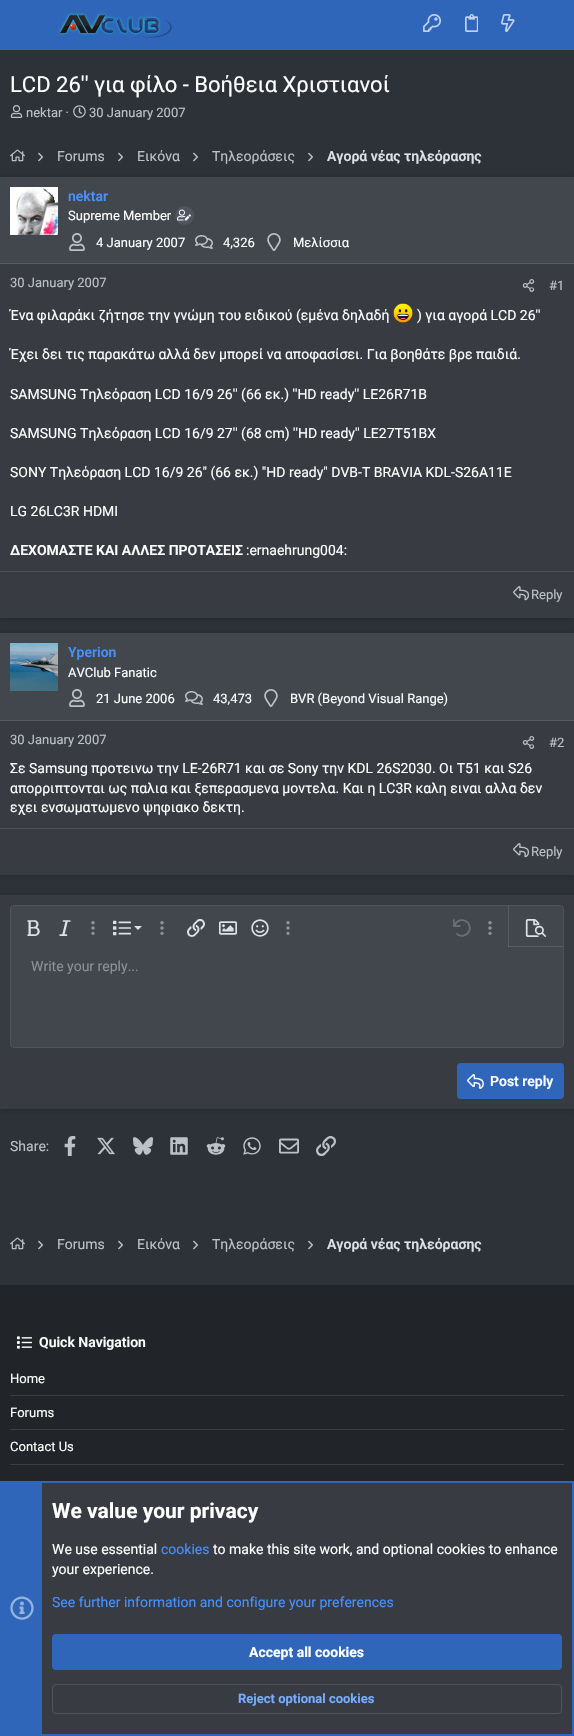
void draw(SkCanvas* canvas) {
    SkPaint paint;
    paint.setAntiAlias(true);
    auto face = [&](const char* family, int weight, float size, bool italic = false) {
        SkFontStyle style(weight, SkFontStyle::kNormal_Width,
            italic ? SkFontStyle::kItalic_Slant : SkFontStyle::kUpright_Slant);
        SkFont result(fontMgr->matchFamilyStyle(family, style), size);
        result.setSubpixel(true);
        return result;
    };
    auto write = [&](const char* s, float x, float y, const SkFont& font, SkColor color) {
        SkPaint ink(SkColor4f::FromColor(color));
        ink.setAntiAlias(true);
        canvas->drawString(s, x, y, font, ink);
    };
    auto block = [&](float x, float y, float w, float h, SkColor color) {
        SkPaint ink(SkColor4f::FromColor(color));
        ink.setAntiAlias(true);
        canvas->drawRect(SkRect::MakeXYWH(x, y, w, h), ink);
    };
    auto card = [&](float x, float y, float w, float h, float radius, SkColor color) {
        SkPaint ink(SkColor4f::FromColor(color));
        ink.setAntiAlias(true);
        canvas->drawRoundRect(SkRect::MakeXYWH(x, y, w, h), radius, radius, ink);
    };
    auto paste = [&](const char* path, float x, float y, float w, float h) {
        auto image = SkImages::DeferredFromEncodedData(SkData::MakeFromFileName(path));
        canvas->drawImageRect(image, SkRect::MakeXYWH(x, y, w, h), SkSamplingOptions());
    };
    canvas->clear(SkColorSetRGB(45, 50, 56));
    block(0, 0, 574, 50, SkColorSetRGB(47, 102, 185));
    paste("pic1.png", 58, 12, 114, 26);
    paste("pic2.png", 423, 14, 18, 18);
    paste("pic3.png", 465, 14, 13, 18);
    paste("pic4.png", 501, 14, 14, 18);
    auto kFont1 = face("Roboto", 400, 22);
    write("LCD 26'' για φίλο - Βοήθεια Χριστιανοί", 10, 92, kFont1, SK_ColorWHITE);
    paste("pic5.png", 10, 105, 13, 13);
    auto kFont2 = face("Roboto", 400, 13);
    write("nektar ·", 26, 117, kFont2, SkColorSetRGB(188, 192, 199));
    paste("pic6.png", 73, 105, 13, 13);
    write("30 January 2007", 89, 117, kFont2, SkColorSetRGB(188, 192, 199));
    paste("pic7.png", 10, 149, 15, 13);
    paste("pic8.png", 38, 152, 6, 10);
    auto kFont3 = face("Roboto", 400, 14);
    write("Forums", 57, 161, kFont3, SkColorSetRGB(188, 192, 199));
    paste("pic9.png", 118, 152, 5, 10);
    write("Εικόνα", 137, 161, kFont3, SkColorSetRGB(188, 192, 199));
    paste("pic9.png", 193, 152, 5, 10);
    write("Τηλεοράσεις", 212, 161, kFont3, SkColorSetRGB(188, 192, 199));
    paste("pic9.png", 308, 152, 5, 10);
    auto kFont4 = face("Roboto", 600, 14);
    write("Αγορά νέας τηλεόρασης", 327, 161, kFont4, SkColorSetRGB(222, 224, 227));
    paint.setColor(SkColorSetARGB(51, 0, 0, 0));
    paint.setMaskFilter(SkMaskFilter::MakeBlur(kNormal_SkBlurStyle, 2.5f));
    canvas->drawRect(SkRect::MakeXYWH(0, 178, 574, 441), paint);
    paint.setMaskFilter(nullptr);
    block(0, 264, 574, 354, SkColorSetRGB(56, 60, 66));
    block(0, 177, 574, 86, SkColorSetRGB(66, 70, 77));
    block(0, 263, 574, 1, SkColorSetRGB(89, 92, 98));
    paste("pic10.png", 10, 187, 48, 48);
    write("nektar", 68, 201, kFont4, SkColorSetRGB(71, 145, 255));
    write("Supreme Member", 68, 220, kFont2, SK_ColorWHITE);
    paint.setColor(SkColorSetRGB(79, 84, 94));
    canvas->drawCircle(184.5f, 215.5f, 9.5f, paint);
    paste("pic11.png", 177, 209, 14, 12);
    paste("pic12.png", 69, 233, 16, 18);
    write("4 January 2007", 96, 247, kFont2, SK_ColorWHITE);
    paste("pic13.png", 195, 235, 18, 14);
    write("4,326", 223, 247, kFont2, SK_ColorWHITE);
    paste("pic14.png", 267, 233, 14, 18);
    write("Μελίσσια", 293, 247, kFont2, SK_ColorWHITE);
    write("30 January 2007", 10, 287, kFont2, SkColorSetRGB(188, 192, 199));
    paste("pic15.png", 522, 279, 13, 13);
    write("#1", 549, 290, kFont2, SkColorSetRGB(188, 192, 199));
    write("Ένα φιλαράκι ζήτησε την γνώμη του ειδικού (εμένα δηλαδή", 10, 320, kFont3, SK_ColorWHITE);
    paste("pic16.png", 393, 303, 20, 20);
    write(") για αγορά LCD 26''", 417, 320, kFont3, SK_ColorWHITE);
    write("Έχει δει τις παρακάτω αλλά δεν μπορεί να αποφασίσει. Για βοηθάτε βρε παιδιά.", 10, 359, kFont3, SK_ColorWHITE);
    write("SAMSUNG Τηλεόραση LCD 16/9 26'' (66 εκ.) ''HD ready'' LE26R71B", 10, 399, kFont3, SK_ColorWHITE);
    write("SAMSUNG Τηλεόραση LCD 16/9 27'' (68 cm) ''HD ready'' LE27T51BX", 10, 438, kFont3, SK_ColorWHITE);
    write("SONY Τηλεόραση LCD 16/9 26\" (66 εκ.) \"HD ready\" DVB-T BRAVIA KDL-S26A11E", 10, 477, kFont3, SK_ColorWHITE);
    write("LG 26LC3R HDMI", 10, 516, kFont3, SK_ColorWHITE);
    write("ΔΕΧΟΜΑΣΤΕ ΚΑΙ ΑΛΛΕΣ ΠΡΟΤΑΣΕΙΣ", 10, 555, kFont4, SK_ColorWHITE);
    write(":ernaehrung004:", 246, 555, kFont3, SK_ColorWHITE);
    block(0, 571, 574, 1, SkColorSetRGB(80, 83, 89));
    paste("pic17.png", 513, 586, 16, 15);
    write("Reply", 531, 599, kFont2, SkColorSetRGB(188, 192, 199));
    paint.setColor(SkColorSetARGB(51, 0, 0, 0));
    paint.setMaskFilter(SkMaskFilter::MakeBlur(kNormal_SkBlurStyle, 2.5f));
    canvas->drawRect(SkRect::MakeXYWH(0, 634, 574, 242), paint);
    paint.setMaskFilter(nullptr);
    block(0, 721, 574, 154, SkColorSetRGB(56, 60, 66));
    block(0, 633, 574, 87, SkColorSetRGB(66, 70, 77));
    block(0, 720, 574, 1, SkColorSetRGB(89, 92, 98));
    paste("pic18.png", 10, 643, 48, 48);
    write("Yperion", 68, 657, kFont4, SkColorSetRGB(71, 145, 255));
    write("AVClub Fanatic", 68, 677, kFont2, SK_ColorWHITE);
    paste("pic12.png", 69, 689, 16, 18);
    write("21 June 2006", 96, 703, kFont2, SK_ColorWHITE);
    paste("pic13.png", 185, 691, 18, 14);
    write("43,473", 213, 703, kFont2, SK_ColorWHITE);
    paste("pic14.png", 264, 689, 14, 18);
    write("BVR (Beyond Visual Range)", 290, 703, kFont2, SK_ColorWHITE);
    write("30 January 2007", 10, 744, kFont2, SkColorSetRGB(188, 192, 199));
    paste("pic15.png", 522, 736, 13, 13);
    write("#2", 549, 747, kFont2, SkColorSetRGB(188, 192, 199));
    write("Σε Samsung προτεινω την LE-26R71 και σε Sony την KDL 26S2030. Οι T51 και S26", 10, 773, kFont3, SK_ColorWHITE);
    write("απορριπτονται ως παλια και ξεπερασμενα μοντελα. Και η LC3R καλη ειναι αλλα δεν", 10, 793, kFont3, SK_ColorWHITE);
    write("εχει ενσωματωμενο ψηφιακο δεκτη.", 10, 812, kFont3, SK_ColorWHITE);
    block(0, 828, 574, 1, SkColorSetRGB(80, 83, 89));
    paste("pic17.png", 513, 843, 16, 15);
    write("Reply", 531, 856, kFont2, SkColorSetRGB(188, 192, 199));
    paint.setMaskFilter(SkMaskFilter::MakeBlur(kNormal_SkBlurStyle, 2.5f));
    canvas->drawRect(SkRect::MakeXYWH(0, 896, 574, 214), paint);
    paint.setMaskFilter(nullptr);
    block(0, 895, 574, 214, SkColorSetRGB(56, 60, 66));
    card(11, 906, 552, 141, 3, SkColorSetRGB(66, 70, 77));
    block(508, 906, 1, 41, SkColorSetRGB(89, 92, 98));
    paint.setStyle(SkPaint::kStroke_Style);
    paint.setStrokeWidth(1);
    paint.setColor(SkColorSetRGB(80, 83, 89));
    canvas->drawRoundRect(SkRect::MakeXYWH(10.5f, 905.5f, 553, 142), 3.5f, 3.5f, paint);
    paste("pic19.png", 27, 920, 13, 16);
    paste("pic20.png", 59, 920, 12, 16);
    paste("pic21.png", 91, 921, 4, 14);
    paste("pic22.png", 113, 920, 18, 16);
    paint.setStyle(SkPaint::kFill_Style);
    paint.setColor(SkColorSetRGB(222, 224, 227));
    canvas->drawPath(SkPathBuilder().moveTo(134, 926).lineTo(142, 926).lineTo(138, 930).close().detach(), paint);
    paste("pic21.png", 160, 921, 4, 14);
    paste("pic23.png", 187, 919, 18, 18);
    paste("pic24.png", 219, 921, 18, 14);
    paste("pic25.png", 251, 919, 18, 18);
    paste("pic21.png", 286, 921, 4, 14);
    paste("pic26.png", 453, 919, 18, 18);
    paste("pic21.png", 488, 921, 4, 14);
    block(508, 946, 55, 1, SkColorSetRGB(89, 92, 98));
    block(508, 946, 1, 1, SkColorSetRGB(109, 112, 117));
    paste("pic27.png", 525, 919, 22, 18);
    write("Write your reply...", 31, 971, kFont3, SkColorSetRGB(142, 144, 148));
    card(457, 1063, 107, 36, 4, SkColorSetRGB(47, 102, 185));
    paste("pic28.png", 467, 1074, 17, 15);
    write("Post reply", 490, 1086, kFont4, SK_ColorWHITE);
    write("Share:", 10, 1151, kFont3, SkColorSetRGB(188, 192, 199));
    paste("pic29.png", 64, 1136, 12, 20);
    paste("pic30.png", 97, 1137, 18, 18);
    paste("pic31.png", 133, 1137, 20, 18);
    paste("pic32.png", 170, 1137, 18, 18);
    paste("pic33.png", 206, 1137, 20, 18);
    paste("pic34.png", 243, 1137, 18, 18);
    paste("pic35.png", 279, 1138, 20, 16);
    paste("pic36.png", 316, 1136, 20, 20);
    paste("pic7.png", 10, 1237, 15, 13);
    paste("pic8.png", 38, 1240, 6, 10);
    write("Forums", 57, 1249, kFont3, SkColorSetRGB(188, 192, 199));
    paste("pic9.png", 118, 1240, 5, 10);
    write("Εικόνα", 137, 1249, kFont3, SkColorSetRGB(188, 192, 199));
    paste("pic9.png", 193, 1240, 5, 10);
    write("Τηλεοράσεις", 212, 1249, kFont3, SkColorSetRGB(188, 192, 199));
    paste("pic9.png", 308, 1240, 5, 10);
    write("Αγορά νέας τηλεόρασης", 327, 1249, kFont4, SkColorSetRGB(222, 224, 227));
    block(0, 1285, 574, 196, SkColorSetRGB(33, 36, 40));
    paste("pic37.png", 17, 1336, 15, 13);
    write("Quick Navigation", 39, 1347, kFont4, SK_ColorWHITE);
    block(10, 1395, 554, 1, SkColorSetRGB(60, 62, 66));
    write("Home", 10, 1383, kFont2, SK_ColorWHITE);
    block(10, 1429, 554, 1, SkColorSetRGB(60, 62, 66));
    write("Forums", 10, 1417, kFont2, SK_ColorWHITE);
    block(10, 1464, 554, 1, SkColorSetRGB(60, 62, 66));
    write("Contact Us", 10, 1451, kFont2, SK_ColorWHITE);
    block(42, 1483, 530, 251, SkColorSetRGB(56, 60, 66));
    paint.setStyle(SkPaint::kStroke_Style);
    paint.setStrokeWidth(2);
    paint.setColor(SkColorSetRGB(47, 102, 185));
    canvas->drawRect(SkRect::MakeXYWH(1, 1482, 572, 253), paint);
    block(2, 1483, 40, 251, SkColorSetRGB(47, 102, 185));
    paste("pic38.png", 10, 1596, 24, 24);
    auto kFont5 = face("Roboto", 700, 21);
    write("We value your privacy", 52, 1518, kFont5, SK_ColorWHITE);
    write("We use essential", 52, 1554, kFont3, SK_ColorWHITE);
    write("cookies", 161, 1554, kFont3, SkColorSetRGB(71, 145, 255));
    write("to make this site work, and optional cookies to enhance", 213, 1554, kFont3, SK_ColorWHITE);
    write("your experience.", 52, 1574, kFont3, SK_ColorWHITE);
    write("See further information and configure your preferences", 52, 1607, kFont3, SkColorSetRGB(71, 145, 255));
    card(52, 1634, 510, 36, 4, SkColorSetRGB(47, 102, 185));
    auto kFont6 = face("Roboto", 700, 14);
    write("Accept all cookies", 249, 1657, kFont6, SK_ColorWHITE);
    paint.setStrokeWidth(1);
    paint.setColor(SkColorSetRGB(80, 83, 89));
    canvas->drawRoundRect(SkRect::MakeXYWH(52.5f, 1684.5f, 509, 29), 3.5f, 3.5f, paint);
    auto kFont7 = face("Roboto", 700, 13);
    write("Reject optional cookies", 238, 1703, kFont7, SkColorSetRGB(117, 172, 255));
}
